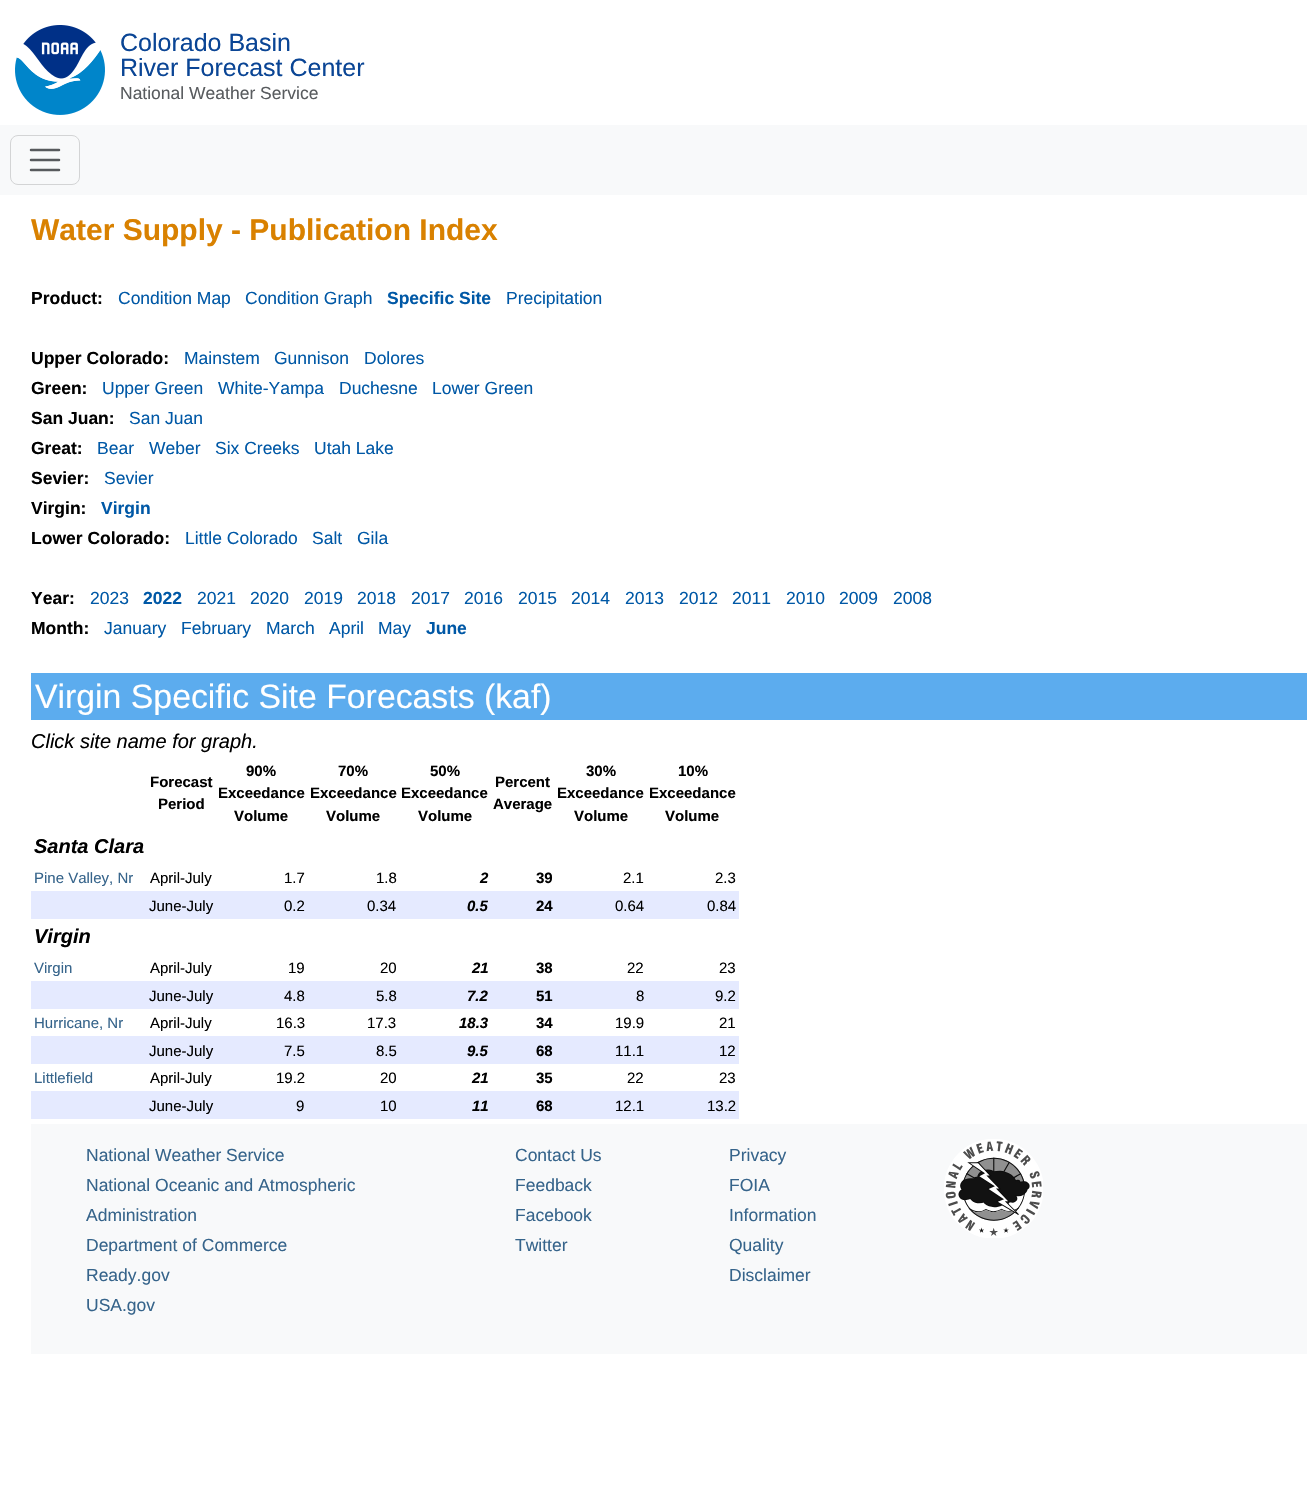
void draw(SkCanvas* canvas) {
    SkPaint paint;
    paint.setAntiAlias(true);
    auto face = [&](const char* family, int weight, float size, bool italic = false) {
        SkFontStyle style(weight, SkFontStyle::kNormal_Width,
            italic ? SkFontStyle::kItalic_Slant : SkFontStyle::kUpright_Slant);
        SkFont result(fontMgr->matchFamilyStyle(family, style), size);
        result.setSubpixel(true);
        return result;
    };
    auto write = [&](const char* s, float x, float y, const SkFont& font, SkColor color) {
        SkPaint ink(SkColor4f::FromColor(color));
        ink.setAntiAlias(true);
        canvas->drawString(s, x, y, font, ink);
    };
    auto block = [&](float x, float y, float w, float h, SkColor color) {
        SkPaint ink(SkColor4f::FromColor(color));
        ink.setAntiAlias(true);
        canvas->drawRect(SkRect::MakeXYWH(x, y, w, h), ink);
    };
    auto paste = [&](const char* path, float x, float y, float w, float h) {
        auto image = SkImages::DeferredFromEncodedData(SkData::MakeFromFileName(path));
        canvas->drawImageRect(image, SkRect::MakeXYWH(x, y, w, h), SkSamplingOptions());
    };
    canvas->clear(SK_ColorWHITE);
    paste("pic1.png", 15, 25, 90, 90);
    auto kFont1 = face("Liberation Sans", 400, 25);
    write("Colorado Basin", 120, 51, kFont1, SkColorSetRGB(10, 69, 149));
    write("River Forecast Center", 120, 76, kFont1, SkColorSetRGB(10, 69, 149));
    auto kFont2 = face("Liberation Sans", 400, 17.5f);
    write("National Weather Service", 120, 99, kFont2, SkColorSetRGB(89, 92, 95));
    block(0, 125, 1307, 70, SkColorSetRGB(248, 249, 250));
    paint.setStyle(SkPaint::kStroke_Style);
    paint.setStrokeWidth(1);
    paint.setColor(SkColorSetRGB(211, 212, 213));
    canvas->drawRoundRect(SkRect::MakeXYWH(10.5f, 135.5f, 69, 49), 7.5f, 7.5f, paint);
    paint.setStrokeWidth(2.5f);
    paint.setStrokeCap(SkPaint::kRound_Cap);
    paint.setColor(SkColorSetRGB(87, 90, 93));
    canvas->drawPath(SkPathBuilder().moveTo(31, 150).lineTo(59, 150).moveTo(31, 160).lineTo(59, 160).moveTo(31, 170).lineTo(59, 170).detach(), paint);
    auto kFont3 = face("Liberation Sans", 700, 30);
    write("Water Supply - Publication Index", 31, 240, kFont3, SkColorSetRGB(217, 129, 0));
    auto kFont4 = face("Liberation Sans", 700, 17.5f);
    write("Product:", 31, 304, kFont4, SK_ColorBLACK);
    write("Condition Map", 118, 304, kFont2, SkColorSetRGB(0, 88, 166));
    write("Condition Graph", 245, 304, kFont2, SkColorSetRGB(0, 88, 166));
    write("Specific Site", 387, 304, kFont4, SkColorSetRGB(0, 88, 166));
    write("Precipitation", 506, 304, kFont2, SkColorSetRGB(0, 88, 166));
    write("Upper Colorado:", 31, 364, kFont4, SK_ColorBLACK);
    write("Mainstem", 184, 364, kFont2, SkColorSetRGB(0, 88, 166));
    write("Gunnison", 274, 364, kFont2, SkColorSetRGB(0, 88, 166));
    write("Dolores", 364, 364, kFont2, SkColorSetRGB(0, 88, 166));
    write("Green:", 31, 394, kFont4, SK_ColorBLACK);
    write("Upper Green", 102, 394, kFont2, SkColorSetRGB(0, 88, 166));
    write("White-Yampa", 218, 394, kFont2, SkColorSetRGB(0, 88, 166));
    write("Duchesne", 339, 394, kFont2, SkColorSetRGB(0, 88, 166));
    write("Lower Green", 432, 394, kFont2, SkColorSetRGB(0, 88, 166));
    write("San Juan:", 31, 424, kFont4, SK_ColorBLACK);
    write("San Juan", 129, 424, kFont2, SkColorSetRGB(0, 88, 166));
    write("Great:", 31, 454, kFont4, SK_ColorBLACK);
    write("Bear", 97, 454, kFont2, SkColorSetRGB(0, 88, 166));
    write("Weber", 149, 454, kFont2, SkColorSetRGB(0, 88, 166));
    write("Six Creeks", 215, 454, kFont2, SkColorSetRGB(0, 88, 166));
    write("Utah Lake", 314, 454, kFont2, SkColorSetRGB(0, 88, 166));
    write("Sevier:", 31, 484, kFont4, SK_ColorBLACK);
    write("Sevier", 104, 484, kFont2, SkColorSetRGB(0, 88, 166));
    write("Virgin:", 31, 514, kFont4, SK_ColorBLACK);
    write("Virgin", 101, 514, kFont4, SkColorSetRGB(0, 88, 166));
    write("Lower Colorado:", 31, 544, kFont4, SK_ColorBLACK);
    write("Little Colorado", 185, 544, kFont2, SkColorSetRGB(0, 88, 166));
    write("Salt", 312, 544, kFont2, SkColorSetRGB(0, 88, 166));
    write("Gila", 357, 544, kFont2, SkColorSetRGB(0, 88, 166));
    write("Year:", 31, 604, kFont4, SK_ColorBLACK);
    write("2023", 90, 604, kFont2, SkColorSetRGB(0, 88, 166));
    write("2022", 143, 604, kFont4, SkColorSetRGB(0, 88, 166));
    write("2021", 197, 604, kFont2, SkColorSetRGB(0, 88, 166));
    write("2020", 250, 604, kFont2, SkColorSetRGB(0, 88, 166));
    write("2019", 304, 604, kFont2, SkColorSetRGB(0, 88, 166));
    write("2018", 357, 604, kFont2, SkColorSetRGB(0, 88, 166));
    write("2017", 411, 604, kFont2, SkColorSetRGB(0, 88, 166));
    write("2016", 464, 604, kFont2, SkColorSetRGB(0, 88, 166));
    write("2015", 518, 604, kFont2, SkColorSetRGB(0, 88, 166));
    write("2014", 571, 604, kFont2, SkColorSetRGB(0, 88, 166));
    write("2013", 625, 604, kFont2, SkColorSetRGB(0, 88, 166));
    write("2012", 679, 604, kFont2, SkColorSetRGB(0, 88, 166));
    write("2011", 732, 604, kFont2, SkColorSetRGB(0, 88, 166));
    write("2010", 786, 604, kFont2, SkColorSetRGB(0, 88, 166));
    write("2009", 839, 604, kFont2, SkColorSetRGB(0, 88, 166));
    write("2008", 893, 604, kFont2, SkColorSetRGB(0, 88, 166));
    write("Month:", 31, 634, kFont4, SK_ColorBLACK);
    write("January", 104, 634, kFont2, SkColorSetRGB(0, 88, 166));
    write("February", 181, 634, kFont2, SkColorSetRGB(0, 88, 166));
    write("March", 266, 634, kFont2, SkColorSetRGB(0, 88, 166));
    write("April", 329, 634, kFont2, SkColorSetRGB(0, 88, 166));
    write("May", 378, 634, kFont2, SkColorSetRGB(0, 88, 166));
    write("June", 426, 634, kFont4, SkColorSetRGB(0, 88, 166));
    block(31, 673, 1276, 47, SkColorSetRGB(92, 172, 238));
    auto kFont5 = face("Liberation Sans", 400, 33.8f);
    write("Virgin Specific Site Forecasts (kaf)", 35, 708, kFont5, SK_ColorWHITE);
    auto kFont6 = face("Liberation Sans", 400, 20, true);
    write("Click site name for graph.", 31, 748, kFont6, SK_ColorBLACK);
    auto kFont7 = face("Liberation Sans", 700, 15);
    write("Forecast", 150, 787, kFont7, SK_ColorBLACK);
    write("Period", 158, 809, kFont7, SK_ColorBLACK);
    write("90%", 246, 776, kFont7, SK_ColorBLACK);
    write("Exceedance", 218, 798, kFont7, SK_ColorBLACK);
    write("Volume", 234, 821, kFont7, SK_ColorBLACK);
    write("70%", 338, 776, kFont7, SK_ColorBLACK);
    write("Exceedance", 310, 798, kFont7, SK_ColorBLACK);
    write("Volume", 326, 821, kFont7, SK_ColorBLACK);
    write("50%", 430, 776, kFont7, SK_ColorBLACK);
    write("Exceedance", 401, 798, kFont7, SK_ColorBLACK);
    write("Volume", 418, 821, kFont7, SK_ColorBLACK);
    write("Percent", 495, 787, kFont7, SK_ColorBLACK);
    write("Average", 493, 809, kFont7, SK_ColorBLACK);
    write("30%", 586, 776, kFont7, SK_ColorBLACK);
    write("Exceedance", 557, 798, kFont7, SK_ColorBLACK);
    write("Volume", 574, 821, kFont7, SK_ColorBLACK);
    write("10%", 678, 776, kFont7, SK_ColorBLACK);
    write("Exceedance", 649, 798, kFont7, SK_ColorBLACK);
    write("Volume", 665, 821, kFont7, SK_ColorBLACK);
    auto kFont8 = face("Liberation Sans", 700, 20, true);
    write("Santa Clara", 34, 853, kFont8, SK_ColorBLACK);
    auto kFont9 = face("Liberation Sans", 400, 15);
    write("Pine Valley, Nr", 34, 883, kFont9, SkColorSetRGB(54, 100, 139));
    write("April-July", 150, 883, kFont9, SK_ColorBLACK);
    write("1.7", 284, 883, kFont9, SK_ColorBLACK);
    write("1.8", 376, 883, kFont9, SK_ColorBLACK);
    auto kFont10 = face("Liberation Sans", 700, 15, true);
    write("2", 480, 883, kFont10, SK_ColorBLACK);
    write("39", 536, 883, kFont7, SK_ColorBLACK);
    write("2.1", 623, 883, kFont9, SK_ColorBLACK);
    write("2.3", 715, 883, kFont9, SK_ColorBLACK);
    block(31, 891, 708, 28, SkColorSetRGB(229, 234, 255));
    write("June-July", 149, 911, kFont9, SK_ColorBLACK);
    write("0.2", 284, 911, kFont9, SK_ColorBLACK);
    write("0.34", 367, 911, kFont9, SK_ColorBLACK);
    write("0.5", 467, 911, kFont10, SK_ColorBLACK);
    write("24", 536, 911, kFont7, SK_ColorBLACK);
    write("0.64", 615, 911, kFont9, SK_ColorBLACK);
    write("0.84", 707, 911, kFont9, SK_ColorBLACK);
    write("Virgin", 34, 943, kFont8, SK_ColorBLACK);
    write("Virgin", 34, 973, kFont9, SkColorSetRGB(54, 100, 139));
    write("April-July", 150, 973, kFont9, SK_ColorBLACK);
    write("19", 288, 973, kFont9, SK_ColorBLACK);
    write("20", 380, 973, kFont9, SK_ColorBLACK);
    write("21", 472, 973, kFont10, SK_ColorBLACK);
    write("38", 536, 973, kFont7, SK_ColorBLACK);
    write("22", 627, 973, kFont9, SK_ColorBLACK);
    write("23", 719, 973, kFont9, SK_ColorBLACK);
    block(31, 981, 708, 28, SkColorSetRGB(229, 234, 255));
    write("June-July", 149, 1001, kFont9, SK_ColorBLACK);
    write("4.8", 284, 1001, kFont9, SK_ColorBLACK);
    write("5.8", 376, 1001, kFont9, SK_ColorBLACK);
    write("7.2", 467, 1001, kFont10, SK_ColorBLACK);
    write("51", 536, 1001, kFont7, SK_ColorBLACK);
    write("8", 636, 1001, kFont9, SK_ColorBLACK);
    write("9.2", 715, 1001, kFont9, SK_ColorBLACK);
    write("Hurricane, Nr", 34, 1028, kFont9, SkColorSetRGB(54, 100, 139));
    write("April-July", 150, 1028, kFont9, SK_ColorBLACK);
    write("16.3", 276, 1028, kFont9, SK_ColorBLACK);
    write("17.3", 367, 1028, kFont9, SK_ColorBLACK);
    write("18.3", 459, 1028, kFont10, SK_ColorBLACK);
    write("34", 536, 1028, kFont7, SK_ColorBLACK);
    write("19.9", 615, 1028, kFont9, SK_ColorBLACK);
    write("21", 719, 1028, kFont9, SK_ColorBLACK);
    block(31, 1036, 708, 28, SkColorSetRGB(229, 234, 255));
    write("June-July", 149, 1056, kFont9, SK_ColorBLACK);
    write("7.5", 284, 1056, kFont9, SK_ColorBLACK);
    write("8.5", 376, 1056, kFont9, SK_ColorBLACK);
    write("9.5", 467, 1056, kFont10, SK_ColorBLACK);
    write("68", 536, 1056, kFont7, SK_ColorBLACK);
    write("11.1", 615, 1056, kFont9, SK_ColorBLACK);
    write("12", 719, 1056, kFont9, SK_ColorBLACK);
    write("Littlefield", 34, 1083, kFont9, SkColorSetRGB(54, 100, 139));
    write("April-July", 150, 1083, kFont9, SK_ColorBLACK);
    write("19.2", 276, 1083, kFont9, SK_ColorBLACK);
    write("20", 380, 1083, kFont9, SK_ColorBLACK);
    write("21", 472, 1083, kFont10, SK_ColorBLACK);
    write("35", 536, 1083, kFont7, SK_ColorBLACK);
    write("22", 627, 1083, kFont9, SK_ColorBLACK);
    write("23", 719, 1083, kFont9, SK_ColorBLACK);
    block(31, 1091, 708, 28, SkColorSetRGB(229, 234, 255));
    write("June-July", 149, 1111, kFont9, SK_ColorBLACK);
    write("9", 296, 1111, kFont9, SK_ColorBLACK);
    write("10", 380, 1111, kFont9, SK_ColorBLACK);
    write("11", 472, 1111, kFont10, SK_ColorBLACK);
    write("68", 536, 1111, kFont7, SK_ColorBLACK);
    write("12.1", 615, 1111, kFont9, SK_ColorBLACK);
    write("13.2", 707, 1111, kFont9, SK_ColorBLACK);
    block(31, 1124, 1276, 230, SkColorSetRGB(248, 249, 250));
    write("National Weather Service", 86, 1161, kFont2, SkColorSetRGB(54, 100, 139));
    write("National Oceanic and Atmospheric", 86, 1191, kFont2, SkColorSetRGB(54, 100, 139));
    write("Administration", 86, 1221, kFont2, SkColorSetRGB(54, 100, 139));
    write("Department of Commerce", 86, 1251, kFont2, SkColorSetRGB(54, 100, 139));
    write("Ready.gov", 86, 1281, kFont2, SkColorSetRGB(54, 100, 139));
    write("USA.gov", 86, 1311, kFont2, SkColorSetRGB(54, 100, 139));
    write("Contact Us", 515, 1161, kFont2, SkColorSetRGB(54, 100, 139));
    write("Feedback", 515, 1191, kFont2, SkColorSetRGB(54, 100, 139));
    write("Facebook", 515, 1221, kFont2, SkColorSetRGB(54, 100, 139));
    write("Twitter", 515, 1251, kFont2, SkColorSetRGB(54, 100, 139));
    write("Privacy", 729, 1161, kFont2, SkColorSetRGB(54, 100, 139));
    write("FOIA", 729, 1191, kFont2, SkColorSetRGB(54, 100, 139));
    write("Information", 729, 1221, kFont2, SkColorSetRGB(54, 100, 139));
    write("Quality", 729, 1251, kFont2, SkColorSetRGB(54, 100, 139));
    write("Disclaimer", 729, 1281, kFont2, SkColorSetRGB(54, 100, 139));
    paste("pic2.png", 944, 1139, 99, 99);
}
